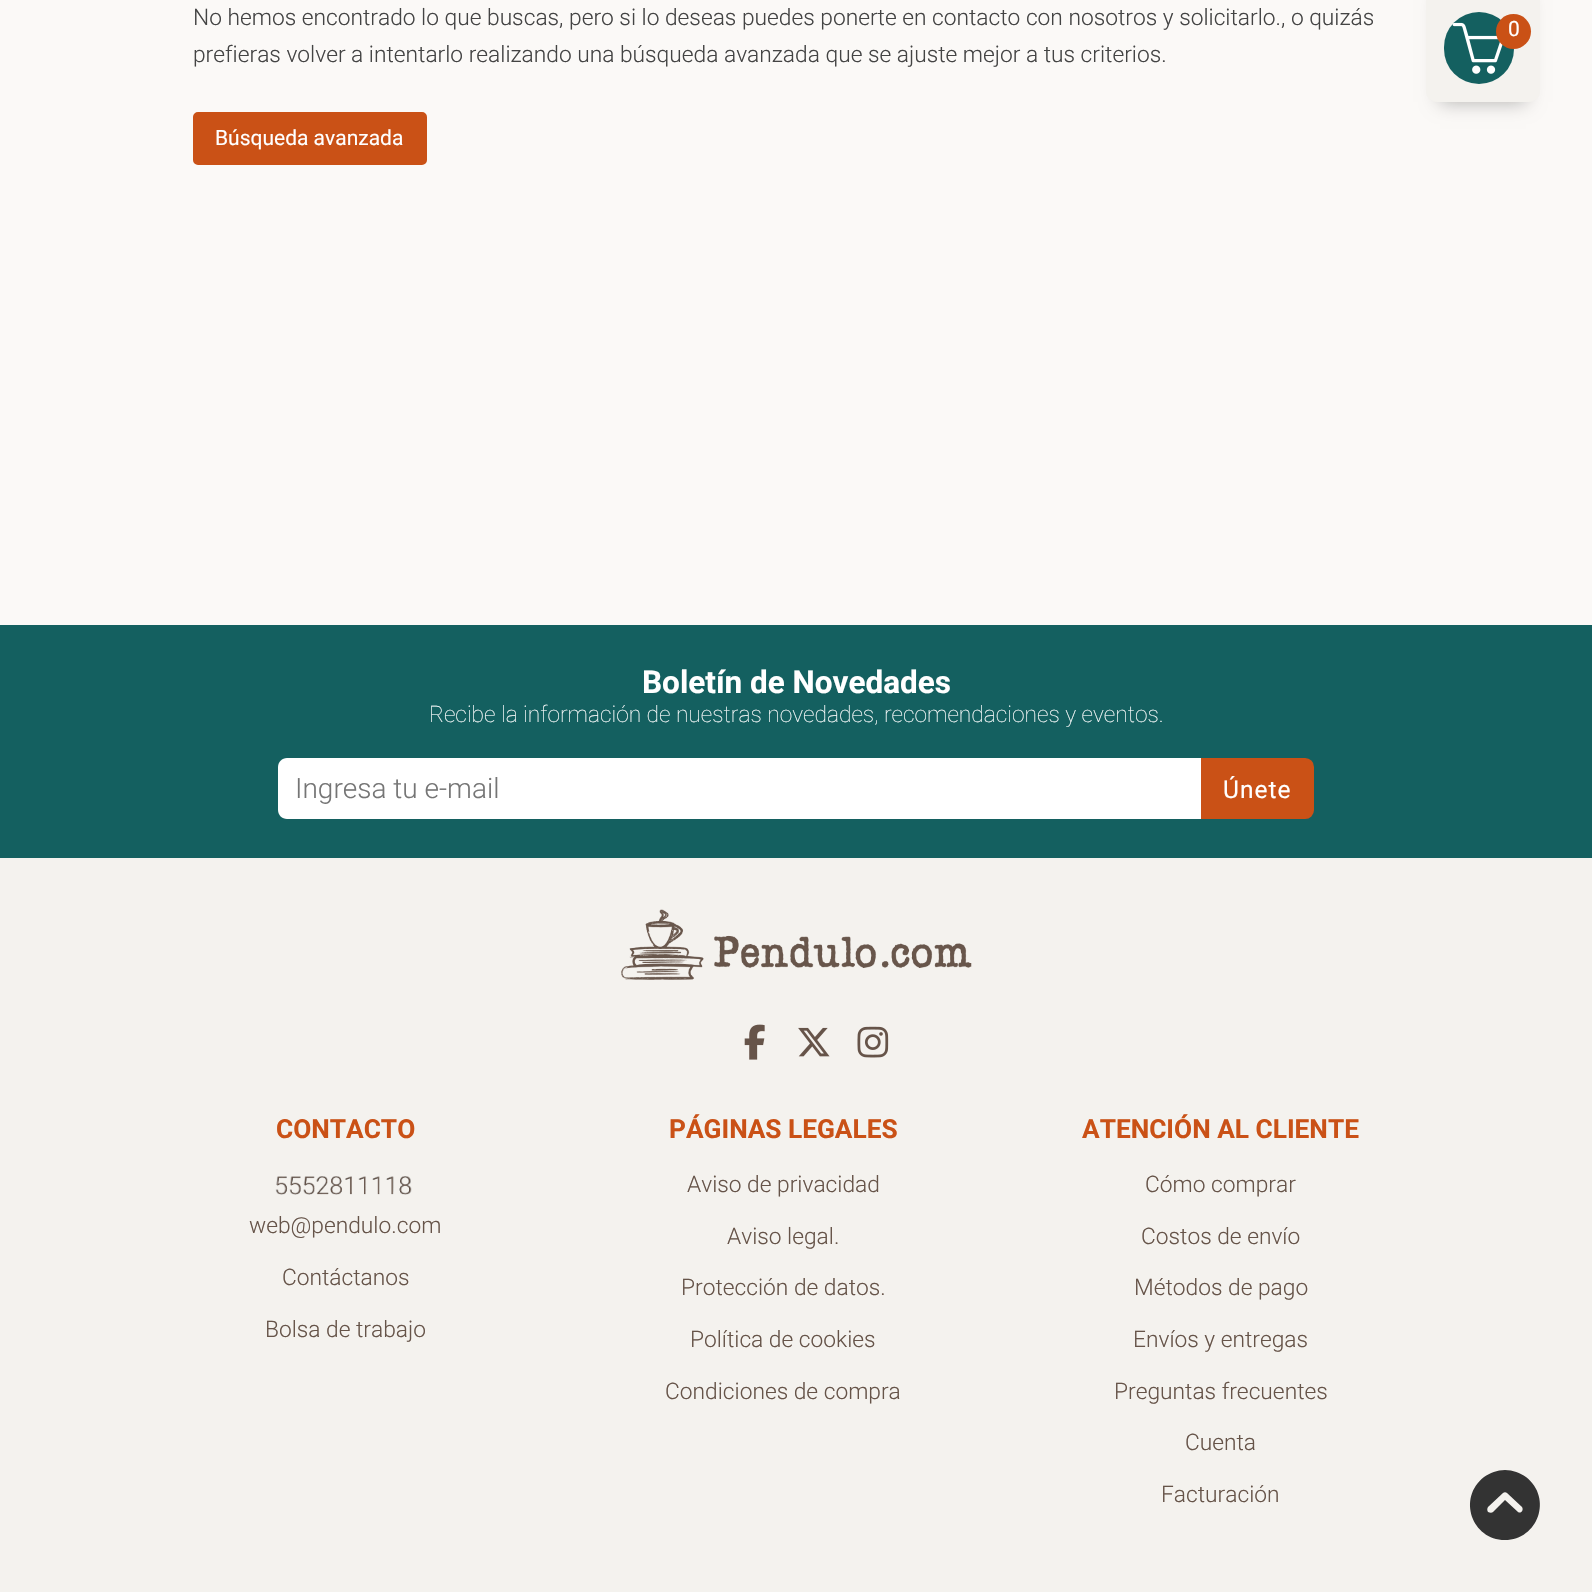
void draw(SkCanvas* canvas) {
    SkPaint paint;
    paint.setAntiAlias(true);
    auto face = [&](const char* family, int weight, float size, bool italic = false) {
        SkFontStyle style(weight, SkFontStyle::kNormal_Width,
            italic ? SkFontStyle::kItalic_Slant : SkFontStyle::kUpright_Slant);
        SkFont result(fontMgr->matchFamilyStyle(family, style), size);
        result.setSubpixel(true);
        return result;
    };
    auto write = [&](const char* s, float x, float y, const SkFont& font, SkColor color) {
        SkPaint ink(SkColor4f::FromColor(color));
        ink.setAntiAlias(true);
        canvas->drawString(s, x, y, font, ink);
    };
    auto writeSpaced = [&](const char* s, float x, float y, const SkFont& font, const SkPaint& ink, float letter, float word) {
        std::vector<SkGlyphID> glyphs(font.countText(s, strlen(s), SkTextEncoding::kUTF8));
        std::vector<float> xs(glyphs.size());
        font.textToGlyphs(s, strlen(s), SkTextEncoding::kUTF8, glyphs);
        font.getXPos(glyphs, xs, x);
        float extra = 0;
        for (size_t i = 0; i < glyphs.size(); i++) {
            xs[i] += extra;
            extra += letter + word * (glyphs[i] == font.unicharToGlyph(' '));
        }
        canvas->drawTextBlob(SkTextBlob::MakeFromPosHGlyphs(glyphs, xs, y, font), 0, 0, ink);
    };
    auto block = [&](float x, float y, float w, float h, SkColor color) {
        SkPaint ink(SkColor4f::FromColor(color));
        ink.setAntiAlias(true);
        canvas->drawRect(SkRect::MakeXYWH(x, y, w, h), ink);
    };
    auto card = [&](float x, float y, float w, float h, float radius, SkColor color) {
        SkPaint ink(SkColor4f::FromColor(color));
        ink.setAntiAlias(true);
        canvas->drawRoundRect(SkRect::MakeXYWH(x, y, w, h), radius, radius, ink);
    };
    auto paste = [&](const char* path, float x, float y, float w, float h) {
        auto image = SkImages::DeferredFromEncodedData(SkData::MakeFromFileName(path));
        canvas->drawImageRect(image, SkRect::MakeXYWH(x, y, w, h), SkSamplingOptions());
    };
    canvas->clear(SkColorSetRGB(251, 249, 247));
    auto kFont1 = face("Roboto", 300, 22.75f);
    write("No hemos encontrado lo que buscas, pero si lo deseas puedes ponerte en contacto con nosotros y solicitarlo., o quizás", 193, 25, kFont1, SkColorSetRGB(68, 68, 68));
    write("prefieras volver a intentarlo realizando una búsqueda avanzada que se ajuste mejor a tus criterios.", 193, 62, kFont1, SkColorSetRGB(68, 68, 68));
    paint.setColor(SkColorSetRGB(202, 81, 22));
    canvas->drawRoundRect(SkRect::MakeXYWH(194, 113, 232, 51), 4, 4, paint);
    paint.setStyle(SkPaint::kStroke_Style);
    paint.setStrokeWidth(2);
    canvas->drawRoundRect(SkRect::MakeXYWH(194, 113, 232, 51), 4, 4, paint);
    auto kFont2 = face("Roboto", 400, 21);
    write("Búsqueda avanzada", 215, 145, kFont2, SK_ColorWHITE);
    block(0, 858, 1592, 734, SkColorSetRGB(244, 242, 238));
    block(0, 625, 1592, 233, SkColorSetRGB(20, 96, 96));
    auto kFont3 = face("Roboto", 700, 31.5f);
    write("Boletín de Novedades", 642, 693, kFont3, SK_ColorWHITE);
    auto kFont4 = face("Roboto", 100, 22.75f);
    write("Recibe la información de nuestras novedades, recomendaciones y eventos.", 429, 722, kFont4, SK_ColorWHITE);
    paint.setStyle(SkPaint::kFill_Style);
    paint.setColor(SK_ColorWHITE);
    canvas->drawPath(SkPathBuilder().moveTo(287, 758).lineTo(1202, 758).lineTo(1202, 819).lineTo(287, 819).cubicTo(282, 819, 278, 815, 278, 810).lineTo(278, 767).cubicTo(278, 762, 282, 758, 287, 758).close().detach(), paint);
    auto kFont5 = face("Roboto", 300, 28);
    write("Ingresa tu e-mail", 295, 798, kFont5, SkColorSetRGB(117, 117, 117));
    paint.setColor(SkColorSetRGB(202, 81, 22));
    canvas->drawPath(SkPathBuilder().moveTo(1202, 759).lineTo(1305, 759).cubicTo(1309.5f, 759, 1313, 762.5f, 1313, 767).lineTo(1313, 810).cubicTo(1313, 814.5f, 1309.5f, 818, 1305, 818).lineTo(1202, 818).close().detach(), paint);
    paint.setStyle(SkPaint::kStroke_Style);
    canvas->drawPath(SkPathBuilder().moveTo(1202, 759).lineTo(1305, 759).cubicTo(1309.5f, 759, 1313, 762.5f, 1313, 767).lineTo(1313, 810).cubicTo(1313, 814.5f, 1309.5f, 818, 1305, 818).lineTo(1202, 818).close().detach(), paint);
    auto kFont6 = face("Roboto", 400, 24.5f);
    paint.setStyle(SkPaint::kFill_Style);
    paint.setColor(SK_ColorWHITE);
    writeSpaced("Únete", 1223, 798, kFont6, paint, 1, 0);
    paste("pic1.png", 621, 909, 351, 71);
    paste("pic2.png", 744, 1024, 21, 36);
    paste("pic3.png", 798, 1027, 32, 30);
    paste("pic4.png", 857, 1026, 32, 32);
    auto kFont7 = face("Roboto", 700, 26.25f);
    write("CONTACTO", 276, 1138, kFont7, SkColorSetRGB(202, 81, 22));
    paste("pic5.png", 275, 1176, 137, 19);
    write("web@pendulo.com", 249, 1233, kFont1, SkColorSetRGB(102, 84, 73));
    write("Contáctanos", 282, 1285, kFont1, SkColorSetRGB(102, 84, 73));
    write("Bolsa de trabajo", 265, 1337, kFont1, SkColorSetRGB(102, 84, 73));
    write("PÁGINAS LEGALES", 669, 1138, kFont7, SkColorSetRGB(202, 81, 22));
    write("Aviso de privacidad", 687, 1192, kFont1, SkColorSetRGB(102, 84, 73));
    write("Aviso legal.", 727, 1244, kFont1, SkColorSetRGB(102, 84, 73));
    write("Protección de datos.", 681, 1295, kFont1, SkColorSetRGB(102, 84, 73));
    write("Política de cookies", 690, 1347, kFont1, SkColorSetRGB(102, 84, 73));
    write("Condiciones de compra", 665, 1399, kFont1, SkColorSetRGB(102, 84, 73));
    write("ATENCIÓN AL CLIENTE", 1082, 1138, kFont7, SkColorSetRGB(202, 81, 22));
    write("Cómo comprar", 1145, 1192, kFont1, SkColorSetRGB(102, 84, 73));
    write("Costos de envío", 1141, 1244, kFont1, SkColorSetRGB(102, 84, 73));
    write("Métodos de pago", 1134, 1295, kFont1, SkColorSetRGB(102, 84, 73));
    write("Envíos y entregas", 1133, 1347, kFont1, SkColorSetRGB(102, 84, 73));
    write("Preguntas frecuentes", 1114, 1399, kFont1, SkColorSetRGB(102, 84, 73));
    write("Cuenta", 1185, 1450, kFont1, SkColorSetRGB(102, 84, 73));
    write("Facturación", 1161, 1502, kFont1, SkColorSetRGB(102, 84, 73));
    paint.setColor(SkColorSetARGB(77, 0, 0, 0));
    paint.setMaskFilter(SkMaskFilter::MakeBlur(kNormal_SkBlurStyle, 9));
    canvas->drawRect(SkRect::MakeXYWH(1440, -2, 86, 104), paint);
    paint.setMaskFilter(nullptr);
    paint.setColor(SkColorSetRGB(244, 242, 238));
    canvas->drawPath(SkPathBuilder().moveTo(1426, -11).lineTo(1540, -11).lineTo(1540, 91).cubicTo(1540, 97, 1535, 102, 1529, 102).lineTo(1437, 102).cubicTo(1431, 102, 1426, 97, 1426, 91).close().detach(), paint);
    card(1444, 12, 70, 72, 35, SkColorSetRGB(20, 96, 96));
    paste("pic6.png", 1452, 22, 51, 52);
    paint.setColor(SkColorSetRGB(202, 81, 22));
    canvas->drawCircle(1513.5f, 31.5f, 17.5f, paint);
    write("0", 1508, 36, kFont2, SK_ColorWHITE);
    paint.setColor(SkColorSetRGB(51, 51, 51));
    canvas->drawPath(SkPathBuilder().moveTo(1505, 1540).cubicTo(1538, 1540, 1553, 1498, 1526, 1477).cubicTo(1520, 1473, 1513, 1470, 1505, 1470).cubicTo(1497, 1470, 1490, 1473, 1484, 1477).cubicTo(1457, 1498, 1472, 1540, 1505, 1540).close().moveTo(1522, 1507).cubicTo(1524, 1510, 1521, 1514, 1518, 1512).lineTo(1505, 1500).lineTo(1493, 1512).cubicTo(1492, 1513, 1490, 1513, 1488, 1512).cubicTo(1487, 1510, 1487, 1509, 1488, 1507).lineTo(1503, 1493).cubicTo(1504, 1492, 1506, 1492, 1507, 1493).close().detach(), paint);
}
